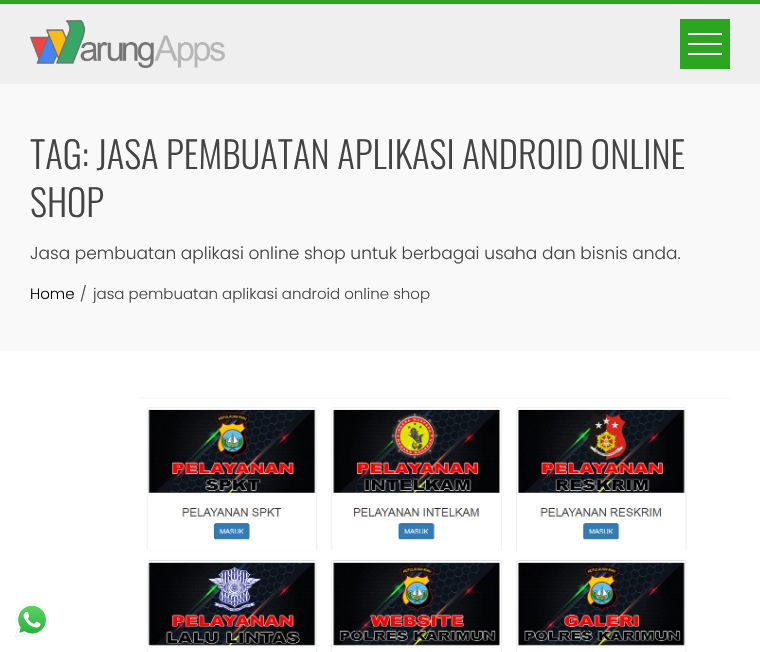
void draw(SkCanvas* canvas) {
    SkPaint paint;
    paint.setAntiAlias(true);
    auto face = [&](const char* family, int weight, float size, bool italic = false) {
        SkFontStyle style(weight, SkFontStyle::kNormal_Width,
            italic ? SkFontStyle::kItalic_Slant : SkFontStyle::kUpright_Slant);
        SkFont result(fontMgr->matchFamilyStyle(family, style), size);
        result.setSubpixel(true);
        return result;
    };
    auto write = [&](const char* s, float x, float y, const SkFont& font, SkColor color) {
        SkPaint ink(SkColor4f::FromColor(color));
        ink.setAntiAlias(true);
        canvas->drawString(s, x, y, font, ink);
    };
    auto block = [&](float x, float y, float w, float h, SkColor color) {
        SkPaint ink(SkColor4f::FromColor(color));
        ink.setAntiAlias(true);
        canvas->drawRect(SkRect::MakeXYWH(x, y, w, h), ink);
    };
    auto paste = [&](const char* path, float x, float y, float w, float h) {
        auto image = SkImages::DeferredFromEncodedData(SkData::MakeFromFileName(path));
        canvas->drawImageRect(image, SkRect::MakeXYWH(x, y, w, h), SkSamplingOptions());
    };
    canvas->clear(SK_ColorWHITE);
    block(0, 4, 760, 80, SkColorSetRGB(239, 239, 239));
    block(0, 0, 760, 4, SkColorSetRGB(44, 165, 33));
    paste("pic1.png", 30, 20, 195, 48);
    block(680, 19, 50, 50, SkColorSetRGB(44, 165, 33));
    block(688, 33, 34, 2, SK_ColorWHITE);
    block(688, 53, 34, 2, SK_ColorWHITE);
    block(688, 43, 34, 2, SK_ColorWHITE);
    block(0, 84, 760, 267, SkColorSetRGB(249, 249, 249));
    auto kFont1 = face("Oswald", 300, 36.75f);
    write("TAG: JASA PEMBUATAN APLIKASI ANDROID ONLINE", 30, 169, kFont1, SkColorSetRGB(68, 68, 68));
    write("SHOP", 30, 217, kFont1, SkColorSetRGB(68, 68, 68));
    auto kFont2 = face("Poppins", 300, 17);
    write("Jasa pembuatan aplikasi online shop untuk berbagai usaha dan bisnis anda.", 30, 259, kFont2, SkColorSetRGB(68, 68, 68));
    auto kFont3 = face("Poppins", 300, 15);
    write("Home", 30, 299, kFont3, SK_ColorBLACK);
    write("/", 80, 299, kFont3, SkColorSetRGB(68, 68, 68));
    write("jasa pembuatan aplikasi android online shop", 93, 299, kFont3, SkColorSetRGB(68, 68, 68));
    paste("pic2.png", 140, 391, 590, 261);
    paste("pic3.png", 15, 603, 34, 34);
}
